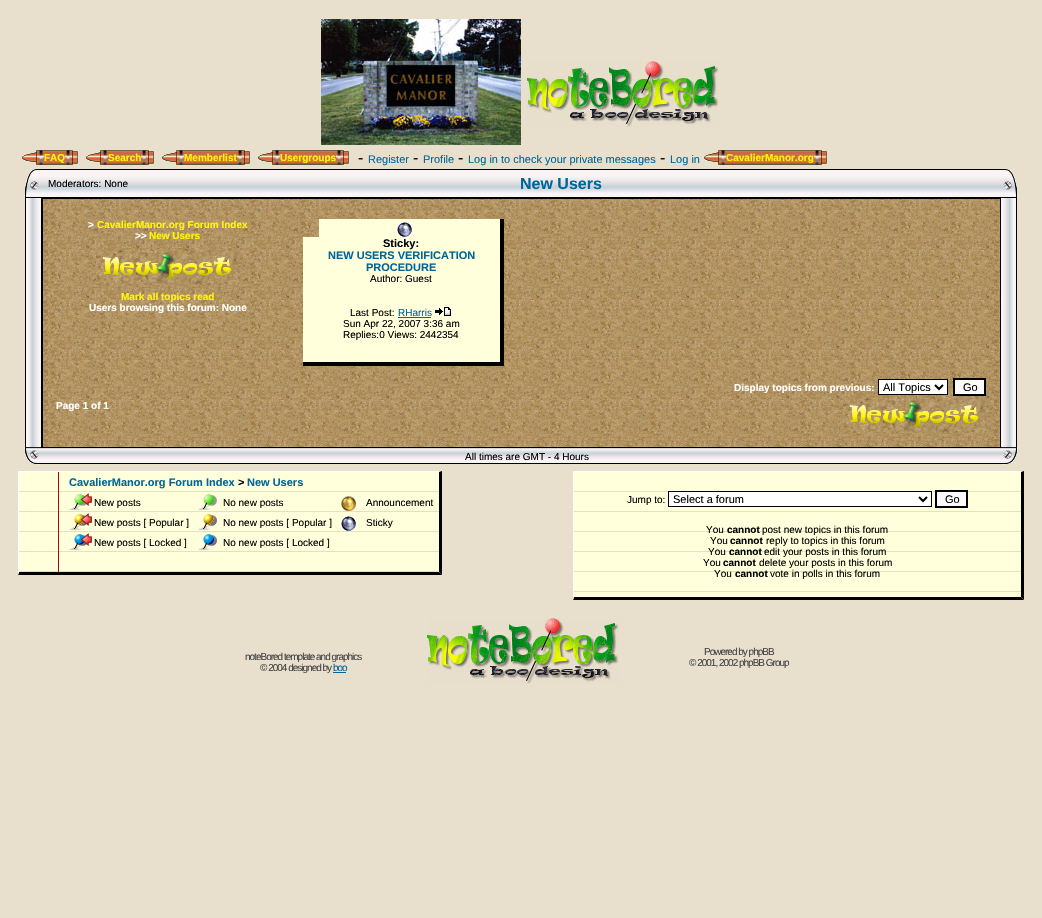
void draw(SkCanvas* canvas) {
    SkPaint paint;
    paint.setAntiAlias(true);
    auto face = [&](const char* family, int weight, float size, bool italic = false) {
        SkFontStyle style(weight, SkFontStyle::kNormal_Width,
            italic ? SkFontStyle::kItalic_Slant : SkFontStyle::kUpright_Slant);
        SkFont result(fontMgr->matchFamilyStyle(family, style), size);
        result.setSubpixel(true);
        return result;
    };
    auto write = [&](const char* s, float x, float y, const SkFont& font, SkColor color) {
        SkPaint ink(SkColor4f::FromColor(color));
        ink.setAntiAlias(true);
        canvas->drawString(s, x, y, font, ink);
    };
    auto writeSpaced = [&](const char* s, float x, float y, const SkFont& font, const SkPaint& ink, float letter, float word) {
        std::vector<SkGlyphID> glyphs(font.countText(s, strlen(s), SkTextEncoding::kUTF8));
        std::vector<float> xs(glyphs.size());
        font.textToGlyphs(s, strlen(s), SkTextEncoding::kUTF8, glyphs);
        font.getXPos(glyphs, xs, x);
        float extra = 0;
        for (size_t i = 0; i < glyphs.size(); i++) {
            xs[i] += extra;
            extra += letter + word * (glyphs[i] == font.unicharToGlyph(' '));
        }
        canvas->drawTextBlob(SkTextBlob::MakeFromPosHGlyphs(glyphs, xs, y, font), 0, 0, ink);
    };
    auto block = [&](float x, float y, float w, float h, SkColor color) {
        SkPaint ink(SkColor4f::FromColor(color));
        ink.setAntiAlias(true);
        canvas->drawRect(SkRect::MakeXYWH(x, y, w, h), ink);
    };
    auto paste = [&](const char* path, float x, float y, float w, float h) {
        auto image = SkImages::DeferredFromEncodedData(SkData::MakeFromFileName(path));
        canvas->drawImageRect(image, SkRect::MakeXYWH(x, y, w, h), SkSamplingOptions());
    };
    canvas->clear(SkColorSetRGB(233, 223, 205));
    paste("pic1.png", 321, 19, 200, 126);
    paste("pic2.png", 527, 61, 192, 66);
    paste("pic3.png", 22, 150, 22, 15);
    paste("pic4.png", 44, 150, 21, 15);
    auto kFont1 = face("Liberation Sans", 700, 10);
    write("FAQ", 44, 161, kFont1, SkColorSetRGB(255, 246, 11));
    paste("pic5.png", 65, 150, 13, 15);
    paste("pic3.png", 86, 150, 22, 15);
    paste("pic6.png", 108, 150, 33, 15);
    write("Search", 108, 161, kFont1, SkColorSetRGB(255, 246, 11));
    paste("pic5.png", 141, 150, 13, 15);
    paste("pic3.png", 162, 150, 22, 15);
    paste("pic7.png", 184, 150, 53, 15);
    write("Memberlist", 184, 161, kFont1, SkColorSetRGB(255, 246, 11));
    paste("pic5.png", 237, 150, 13, 15);
    paste("pic3.png", 258, 150, 22, 15);
    paste("pic8.png", 280, 150, 56, 15);
    write("Usergroups", 280, 161, kFont1, SkColorSetRGB(255, 246, 11));
    paste("pic5.png", 336, 150, 13, 15);
    auto kFont2 = face("Liberation Sans", 400, 16);
    write("-", 358, 163, kFont2, SK_ColorBLACK);
    auto kFont3 = face("Liberation Sans", 400, 11);
    write("Register", 368, 163, kFont3, SkColorSetRGB(0, 102, 153));
    write("-", 413, 163, kFont2, SK_ColorBLACK);
    write("Profile", 423, 163, kFont3, SkColorSetRGB(0, 102, 153));
    write("-", 458, 163, kFont2, SK_ColorBLACK);
    write("Log in to check your private messages", 468, 163, kFont3, SkColorSetRGB(0, 102, 153));
    write("-", 660, 163, kFont2, SK_ColorBLACK);
    write("Log in", 670, 163, kFont3, SkColorSetRGB(0, 102, 153));
    paste("pic3.png", 704, 150, 22, 15);
    paste("pic9.png", 726, 150, 88, 15);
    write("CavalierManor.org", 726, 161, kFont1, SkColorSetRGB(255, 246, 11));
    paste("pic5.png", 814, 150, 13, 15);
    paste("pic10.png", 24, 169, 24, 30);
    paste("pic11.png", 48, 169, 946, 30);
    auto kFont4 = face("Liberation Sans", 400, 10);
    write("Moderators: None", 48, 187, kFont4, SK_ColorBLACK);
    auto kFont5 = face("Liberation Sans", 700, 16);
    write("New Users", 520, 189, kFont5, SkColorSetRGB(0, 102, 153));
    paste("pic12.png", 994, 169, 24, 30);
    paste("pic13.png", 25, 199, 23, 242);
    paste("pic14.png", 48, 199, 946, 242);
    write(">", 88, 228, kFont1, SK_ColorWHITE);
    write("CavalierManor.org Forum Index", 97, 228, kFont1, SkColorSetRGB(255, 246, 11));
    write(">>", 135, 239, kFont1, SK_ColorWHITE);
    write("New Users", 149, 239, kFont1, SkColorSetRGB(255, 246, 11));
    paste("pic15.png", 96, 248, 143, 37);
    write("Mark all topics read", 121, 300, kFont1, SkColorSetRGB(255, 246, 11));
    write("Users browsing this forum: None", 89, 311, kFont1, SK_ColorWHITE);
    block(500, 219, 4, 147, SK_ColorBLACK);
    block(303, 362, 201, 4, SK_ColorBLACK);
    block(319, 219, 181, 18, SkColorSetRGB(255, 255, 219));
    paste("pic16.png", 397, 222, 15, 15);
    block(303, 237, 197, 125, SkColorSetRGB(255, 255, 219));
    auto kFont6 = face("Liberation Sans", 700, 11);
    write("Sticky:", 383, 247, kFont6, SK_ColorBLACK);
    write("NEW USERS VERIFICATION", 328, 259, kFont6, SkColorSetRGB(0, 102, 153));
    write("PROCEDURE", 366, 271, kFont6, SkColorSetRGB(0, 102, 153));
    write("Author: Guest", 370, 282, kFont4, SK_ColorBLACK);
    write("Last Post:", 350, 316, kFont4, SK_ColorBLACK);
    write("RHarris", 398, 316, kFont4, SkColorSetRGB(0, 102, 153));
    block(398, 317, 33, 1, SkColorSetRGB(0, 102, 153));
    paste("pic17.png", 435, 307, 16, 9);
    write("Sun Apr 22, 2007 3:36 am", 343, 327, kFont4, SK_ColorBLACK);
    write("Replies:0 Views: 2442354", 343, 338, kFont4, SK_ColorBLACK);
    write("Display topics from previous:", 734, 391, kFont1, SK_ColorWHITE);
    paint.setColor(SK_ColorWHITE);
    canvas->drawRect(SkRect::MakeXYWH(878.5f, 379.5f, 69, 15), paint);
    paint.setStyle(SkPaint::kStroke_Style);
    paint.setStrokeWidth(1);
    paint.setColor(SK_ColorBLACK);
    canvas->drawRect(SkRect::MakeXYWH(878.5f, 379.5f, 69, 15), paint);
    paint.setStrokeWidth(2);
    canvas->drawPath(SkPathBuilder().moveTo(935, 385).lineTo(939, 389).lineTo(943, 385).detach(), paint);
    write("All Topics", 883, 391, kFont3, SK_ColorBLACK);
    paint.setStyle(SkPaint::kFill_Style);
    paint.setColor(SkColorSetRGB(250, 250, 250));
    canvas->drawRect(SkRect::MakeXYWH(954, 379, 31, 16), paint);
    paint.setStyle(SkPaint::kStroke_Style);
    paint.setColor(SK_ColorBLACK);
    canvas->drawRect(SkRect::MakeXYWH(954, 379, 31, 16), paint);
    write("Go", 963, 391, kFont3, SK_ColorBLACK);
    paste("pic15.png", 843, 396, 143, 37);
    write("Page 1 of 1", 56, 409, kFont1, SK_ColorWHITE);
    paste("pic18.png", 994, 199, 23, 242);
    paste("pic19.png", 24, 441, 24, 24);
    paste("pic20.png", 48, 441, 946, 23);
    write("All times are GMT - 4 Hours", 465, 460, kFont4, SK_ColorBLACK);
    paste("pic21.png", 994, 441, 24, 24);
    paste("pic22.png", 18, 471, 424, 104);
    paint.setStyle(SkPaint::kFill_Style);
    paint.setColor(SK_ColorWHITE);
    canvas->drawPath(SkPathBuilder().moveTo(18, 471).lineTo(442, 471).lineTo(439, 472).lineTo(19, 472).close().detach(), paint);
    paint.setColor(SK_ColorBLACK);
    canvas->drawPath(SkPathBuilder().moveTo(442, 471).lineTo(442, 575).lineTo(439, 572).lineTo(439, 472).close().detach(), paint);
    canvas->drawPath(SkPathBuilder().moveTo(442, 575).lineTo(18, 575).lineTo(19, 572).lineTo(439, 572).close().detach(), paint);
    paint.setColor(SK_ColorWHITE);
    canvas->drawPath(SkPathBuilder().moveTo(18, 575).lineTo(18, 471).lineTo(19, 472).lineTo(19, 572).close().detach(), paint);
    block(58, 472, 1, 100, SkColorSetRGB(164, 8, 15));
    write("CavalierManor.org Forum Index", 69, 486, kFont6, SkColorSetRGB(0, 102, 153));
    write(">", 238, 486, kFont6, SK_ColorBLACK);
    write("New Users", 247, 486, kFont6, SkColorSetRGB(0, 102, 153));
    paste("pic23.png", 69, 493, 23, 17);
    write("New posts", 94, 506, kFont4, SK_ColorBLACK);
    paste("pic24.png", 198, 494, 19, 16);
    write("No new posts", 223, 506, kFont4, SK_ColorBLACK);
    paste("pic25.png", 341, 496, 16, 15);
    write("Announcement", 366, 506, kFont4, SK_ColorBLACK);
    paste("pic26.png", 69, 513, 23, 17);
    write("New posts [ Popular ]", 94, 526, kFont4, SK_ColorBLACK);
    paste("pic27.png", 198, 514, 19, 16);
    write("No new posts [ Popular ]", 223, 526, kFont4, SK_ColorBLACK);
    paste("pic16.png", 341, 516, 15, 15);
    write("Sticky", 366, 526, kFont4, SK_ColorBLACK);
    paste("pic28.png", 69, 533, 23, 17);
    write("New posts [ Locked ]", 94, 546, kFont4, SK_ColorBLACK);
    paste("pic29.png", 198, 534, 19, 16);
    write("No new posts [ Locked ]", 223, 546, kFont4, SK_ColorBLACK);
    paste("pic30.png", 573, 471, 451, 129);
    canvas->drawPath(SkPathBuilder().moveTo(573, 471).lineTo(1024, 471).lineTo(1021, 472).lineTo(574, 472).close().detach(), paint);
    paint.setColor(SK_ColorBLACK);
    canvas->drawPath(SkPathBuilder().moveTo(1024, 471).lineTo(1024, 600).lineTo(1021, 597).lineTo(1021, 472).close().detach(), paint);
    canvas->drawPath(SkPathBuilder().moveTo(1024, 600).lineTo(573, 600).lineTo(574, 597).lineTo(1021, 597).close().detach(), paint);
    paint.setColor(SK_ColorWHITE);
    canvas->drawPath(SkPathBuilder().moveTo(573, 600).lineTo(573, 471).lineTo(574, 472).lineTo(574, 597).close().detach(), paint);
    write("Jump to:", 627, 503, kFont4, SK_ColorBLACK);
    canvas->drawRect(SkRect::MakeXYWH(668.5f, 491.5f, 263, 15), paint);
    paint.setStyle(SkPaint::kStroke_Style);
    paint.setStrokeWidth(1);
    paint.setColor(SK_ColorBLACK);
    canvas->drawRect(SkRect::MakeXYWH(668.5f, 491.5f, 263, 15), paint);
    paint.setStrokeWidth(2);
    canvas->drawPath(SkPathBuilder().moveTo(919, 497).lineTo(923, 501).lineTo(927, 497).detach(), paint);
    write("Select a forum", 673, 503, kFont3, SK_ColorBLACK);
    paint.setStyle(SkPaint::kFill_Style);
    paint.setColor(SkColorSetRGB(250, 250, 250));
    canvas->drawRect(SkRect::MakeXYWH(936, 491, 31, 16), paint);
    paint.setStyle(SkPaint::kStroke_Style);
    paint.setColor(SK_ColorBLACK);
    canvas->drawRect(SkRect::MakeXYWH(936, 491, 31, 16), paint);
    write("Go", 945, 503, kFont3, SK_ColorBLACK);
    write("You", 706, 533, kFont4, SK_ColorBLACK);
    write("cannot", 727, 533, kFont1, SK_ColorBLACK);
    write("post new topics in this forum", 762, 533, kFont4, SK_ColorBLACK);
    write("You", 710, 544, kFont4, SK_ColorBLACK);
    write("cannot", 730, 544, kFont1, SK_ColorBLACK);
    write("reply to topics in this forum", 766, 544, kFont4, SK_ColorBLACK);
    write("You", 708, 555, kFont4, SK_ColorBLACK);
    write("cannot", 729, 555, kFont1, SK_ColorBLACK);
    write("edit your posts in this forum", 764, 555, kFont4, SK_ColorBLACK);
    write("You", 703, 566, kFont4, SK_ColorBLACK);
    write("cannot", 723, 566, kFont1, SK_ColorBLACK);
    write("delete your posts in this forum", 759, 566, kFont4, SK_ColorBLACK);
    write("You", 714, 577, kFont4, SK_ColorBLACK);
    write("cannot", 735, 577, kFont1, SK_ColorBLACK);
    write("vote in polls in this forum", 770, 577, kFont4, SK_ColorBLACK);
    paint.setStyle(SkPaint::kFill_Style);
    paint.setColor(SkColorSetRGB(68, 68, 68));
    writeSpaced("noteBored template and graphics", 245, 660, kFont4, paint, -1, 0);
    writeSpaced("© 2004 designed by", 260, 671, kFont4, paint, -1, 0);
    block(333, 672, 13, 1, SkColorSetRGB(0, 102, 153));
    paint.setColor(SkColorSetRGB(0, 102, 153));
    writeSpaced("boo", 333, 671, kFont4, paint, -1, 0);
    paste("pic2.png", 427, 618, 192, 66);
    paint.setColor(SkColorSetRGB(68, 68, 68));
    writeSpaced("Powered by phpBB", 704, 655, kFont4, paint, -1, 0);
    writeSpaced("© 2001, 2002 phpBB Group", 689, 666, kFont4, paint, -1, 0);
}
